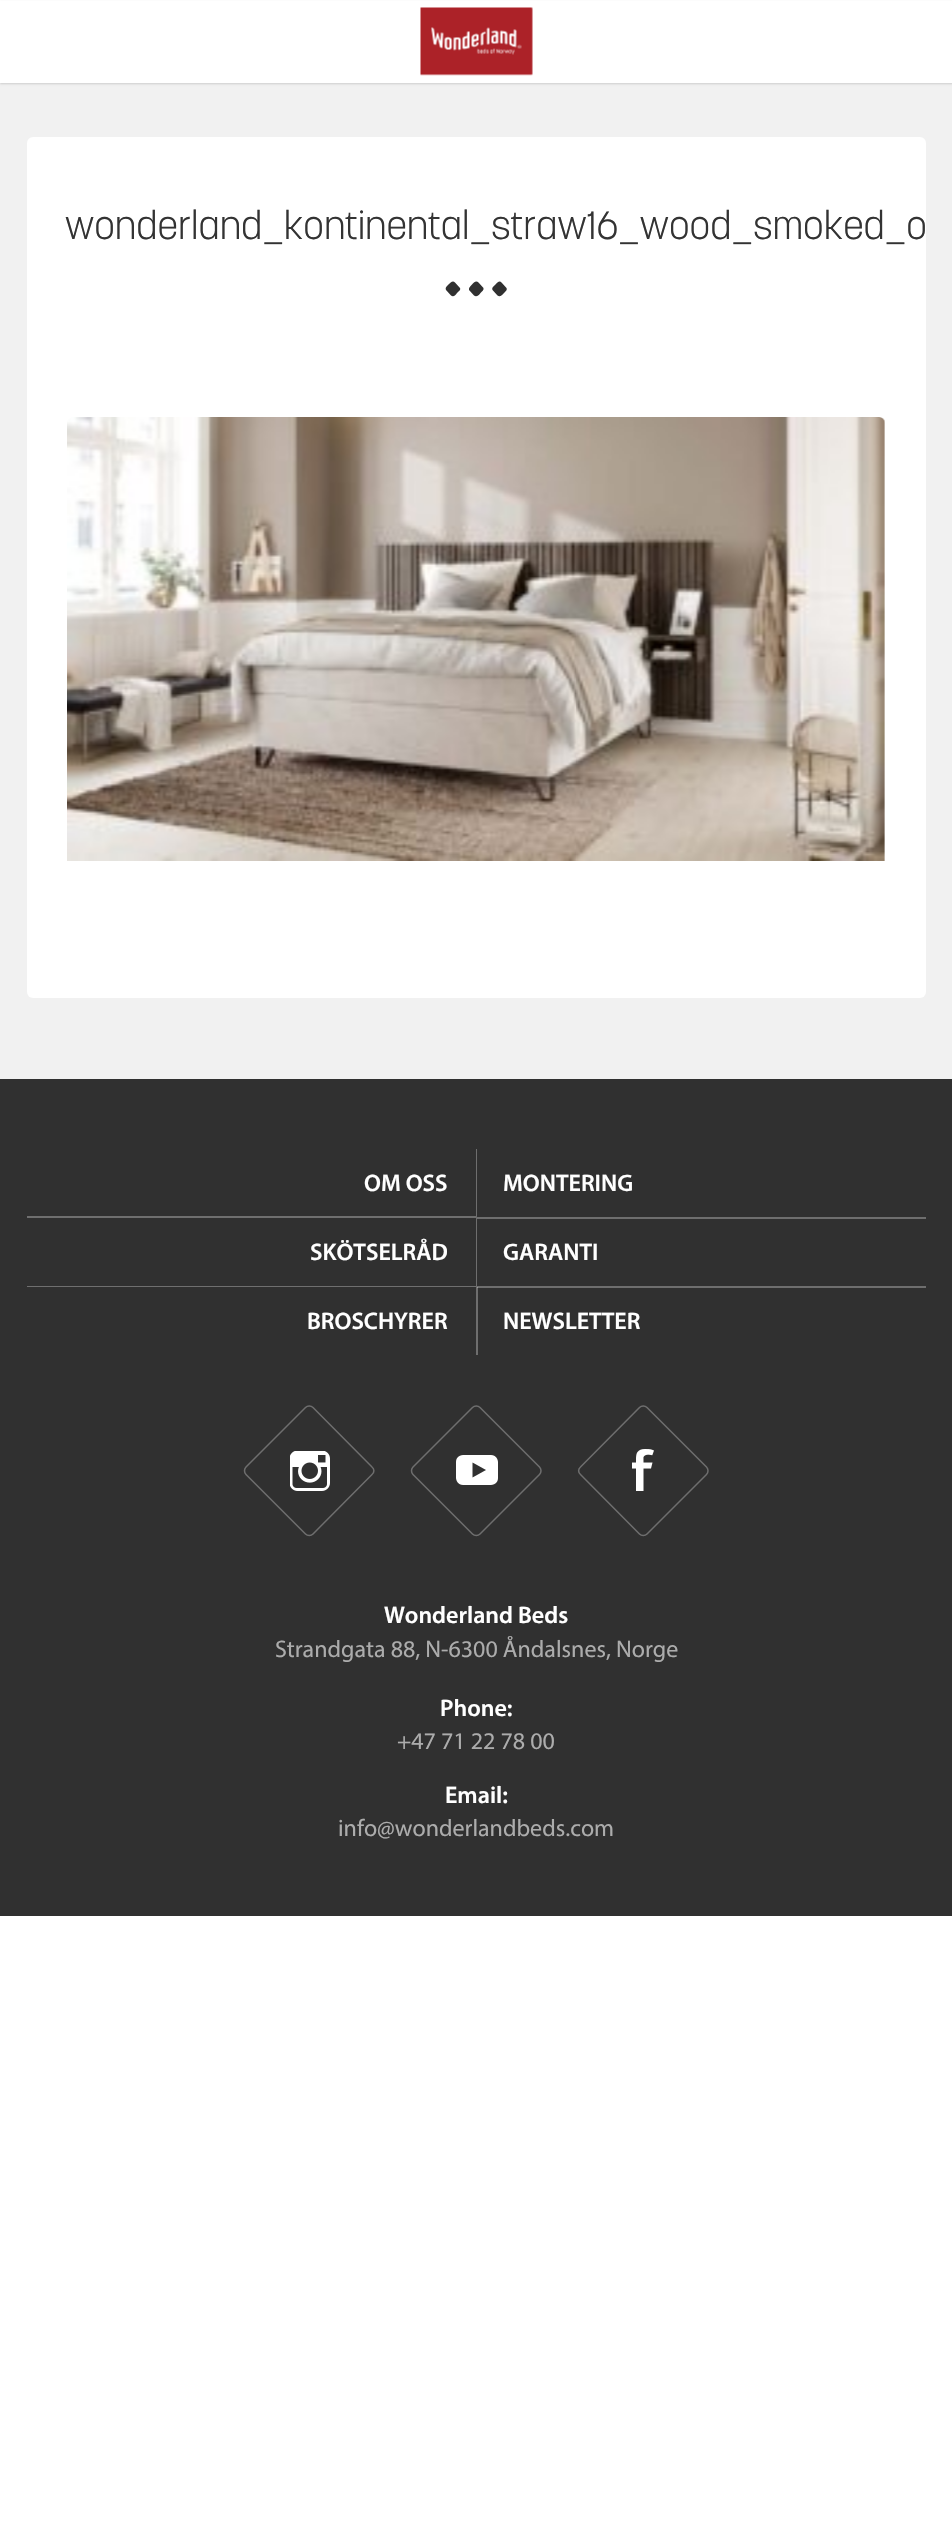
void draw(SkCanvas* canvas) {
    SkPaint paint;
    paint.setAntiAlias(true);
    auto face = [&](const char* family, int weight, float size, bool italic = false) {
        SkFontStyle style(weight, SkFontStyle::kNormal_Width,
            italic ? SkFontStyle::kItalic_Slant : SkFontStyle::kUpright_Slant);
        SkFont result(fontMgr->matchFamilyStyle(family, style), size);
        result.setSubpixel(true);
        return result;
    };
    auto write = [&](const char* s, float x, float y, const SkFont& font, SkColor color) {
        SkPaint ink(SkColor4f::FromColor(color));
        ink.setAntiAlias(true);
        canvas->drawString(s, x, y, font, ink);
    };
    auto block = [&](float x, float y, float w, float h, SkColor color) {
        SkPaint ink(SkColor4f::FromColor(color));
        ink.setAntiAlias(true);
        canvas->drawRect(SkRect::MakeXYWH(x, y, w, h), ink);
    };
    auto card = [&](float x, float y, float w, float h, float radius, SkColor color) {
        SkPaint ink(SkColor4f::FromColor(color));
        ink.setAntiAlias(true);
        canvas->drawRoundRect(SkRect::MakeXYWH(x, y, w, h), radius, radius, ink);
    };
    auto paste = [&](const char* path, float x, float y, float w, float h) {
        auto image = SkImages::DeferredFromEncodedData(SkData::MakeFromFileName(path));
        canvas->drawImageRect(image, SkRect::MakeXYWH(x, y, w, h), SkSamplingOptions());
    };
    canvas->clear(SK_ColorWHITE);
    block(0, 83, 952, 996, SkColorSetRGB(241, 241, 241));
    paint.setColor(SkColorSetARGB(38, 0, 0, 0));
    paint.setMaskFilter(SkMaskFilter::MakeBlur(kNormal_SkBlurStyle, 1));
    canvas->drawRect(SkRect::MakeXYWH(0, 2, 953, 82), paint);
    paint.setMaskFilter(nullptr);
    block(0, 1, 952, 82, SK_ColorWHITE);
    paste("pic1.png", 420, 7, 113, 69);
    card(27, 137, 899, 861, 6, SK_ColorWHITE);
    auto kFont1 = face("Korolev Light", 300, 39);
    write("wonderland_kontinental_straw16_wood_smoked_o", 65, 239, kFont1, SkColorSetRGB(51, 51, 51));
    paint.setColor(SkColorSetRGB(48, 48, 48));
    canvas->drawPath(SkPathBuilder().moveTo(478.5f, 282.5f).lineTo(483.5f, 288).cubicTo(484, 290, 482, 291.5f, 480.5f, 293).cubicTo(479, 295, 476.5f, 297.5f, 474, 295.5f).lineTo(469, 290).cubicTo(468.5f, 287.5f, 470.5f, 286, 472, 284.5f).cubicTo(473.5f, 283, 476, 280, 478.5f, 282.5f).close().moveTo(501.5f, 282.5f).lineTo(506.5f, 288).cubicTo(507.5f, 290, 505.5f, 291.5f, 504, 293).cubicTo(502, 295, 500, 297.5f, 497.5f, 295.5f).lineTo(492.5f, 290).cubicTo(491.5f, 287.5f, 494, 286, 495.5f, 284.5f).cubicTo(497, 283, 499.5f, 280, 501.5f, 282.5f).close().moveTo(455, 282.5f).lineTo(460, 288).cubicTo(461, 290, 458.5f, 291.5f, 457, 293).cubicTo(455.5f, 295, 453.5f, 297.5f, 451, 295.5f).lineTo(446, 290).cubicTo(445, 287.5f, 447, 286, 448.5f, 284.5f).cubicTo(450.5f, 283, 452.5f, 280, 455, 282.5f).close().detach(), paint);
    paste("pic2.png", 67, 417, 818, 444);
    block(0, 1079, 952, 837, SkColorSetRGB(48, 48, 48));
    block(476, 1287, 2, 68, SkColorSetRGB(110, 110, 110));
    paint.setColor(SkColorSetRGB(110, 110, 110));
    canvas->drawPath(SkPathBuilder().moveTo(477, 1149).lineTo(477, 1218).lineTo(476, 1216).lineTo(476, 1149).close().detach(), paint);
    paint.setColor(SkColorSetARGB(77, 255, 255, 255));
    canvas->drawPath(SkPathBuilder().moveTo(477, 1218).lineTo(27, 1218).lineTo(27, 1216).lineTo(476, 1216).close().detach(), paint);
    auto kFont2 = face("Myriad", 600, 24);
    write("OM OSS", 364, 1191, kFont2, SK_ColorWHITE);
    block(477, 1217, 449, 2, SkColorSetRGB(110, 110, 110));
    write("MONTERING", 503, 1191, kFont2, SK_ColorWHITE);
    paint.setColor(SkColorSetRGB(110, 110, 110));
    canvas->drawPath(SkPathBuilder().moveTo(477, 1218).lineTo(477, 1287).lineTo(476, 1286).lineTo(476, 1218).close().detach(), paint);
    paint.setColor(SkColorSetARGB(77, 255, 255, 255));
    canvas->drawPath(SkPathBuilder().moveTo(477, 1287).lineTo(27, 1287).lineTo(27, 1286).lineTo(476, 1286).close().detach(), paint);
    write("SKÖTSELRÅD", 310, 1260, kFont2, SK_ColorWHITE);
    block(477, 1286, 449, 2, SkColorSetRGB(110, 110, 110));
    block(477, 1287, 1, 1, SkColorSetRGB(154, 154, 154));
    write("GARANTI", 503, 1260, kFont2, SK_ColorWHITE);
    write("BROSCHYRER", 307, 1329, kFont2, SK_ColorWHITE);
    write("NEWSLETTER", 503, 1329, kFont2, SK_ColorWHITE);
    paint.setStyle(SkPaint::kStroke_Style);
    paint.setStrokeWidth(1.5f);
    paint.setColor(SkColorSetRGB(110, 110, 110));
    canvas->drawPath(SkPathBuilder().moveTo(313, 1407.5f).lineTo(372, 1467).cubicTo(374.5f, 1469, 374.5f, 1472.5f, 372, 1474.5f).lineTo(313, 1534).cubicTo(311, 1536, 307.5f, 1536, 305.5f, 1534).lineTo(246, 1474.5f).cubicTo(244, 1472.5f, 244, 1469, 246, 1467).lineTo(305.5f, 1407.5f).cubicTo(307.5f, 1405.5f, 311, 1405.5f, 313, 1407.5f).close().detach(), paint);
    paste("pic3.png", 290, 1451, 40, 40);
    canvas->drawPath(SkPathBuilder().moveTo(480, 1407.5f).lineTo(539.5f, 1467).cubicTo(541.5f, 1469, 541.5f, 1472.5f, 539.5f, 1474.5f).lineTo(480, 1534).cubicTo(478, 1536, 474.5f, 1536, 472.5f, 1534).lineTo(413, 1474.5f).cubicTo(411, 1472.5f, 411, 1469, 413, 1467).lineTo(472.5f, 1407.5f).cubicTo(474.5f, 1405.5f, 478, 1405.5f, 480, 1407.5f).close().detach(), paint);
    paste("pic4.png", 456, 1455, 42, 30);
    canvas->drawPath(SkPathBuilder().moveTo(647, 1407.5f).lineTo(706.5f, 1467).cubicTo(708.5f, 1469, 708.5f, 1472.5f, 706.5f, 1474.5f).lineTo(647, 1534).cubicTo(645, 1536, 641.5f, 1536, 639.5f, 1534).lineTo(580.5f, 1474.5f).cubicTo(578, 1472.5f, 578, 1469, 580.5f, 1467).lineTo(639.5f, 1407.5f).cubicTo(641.5f, 1405.5f, 645, 1405.5f, 647, 1407.5f).close().detach(), paint);
    paste("pic5.png", 632, 1449, 22, 42);
    write("Wonderland Beds", 384, 1623, kFont2, SK_ColorWHITE);
    auto kFont3 = face("Myriad", 400, 24);
    write("Strandgata 88, N-6300 Åndalsnes, Norge", 275, 1657, kFont3, SkColorSetRGB(172, 172, 172));
    write("Phone:", 440, 1716, kFont2, SK_ColorWHITE);
    write("+47 71 22 78 00", 397, 1749, kFont3, SkColorSetRGB(172, 172, 172));
    write("Email:", 445, 1803, kFont2, SK_ColorWHITE);
    write("info@wonderlandbeds.com", 338, 1836, kFont3, SkColorSetRGB(172, 172, 172));
}
